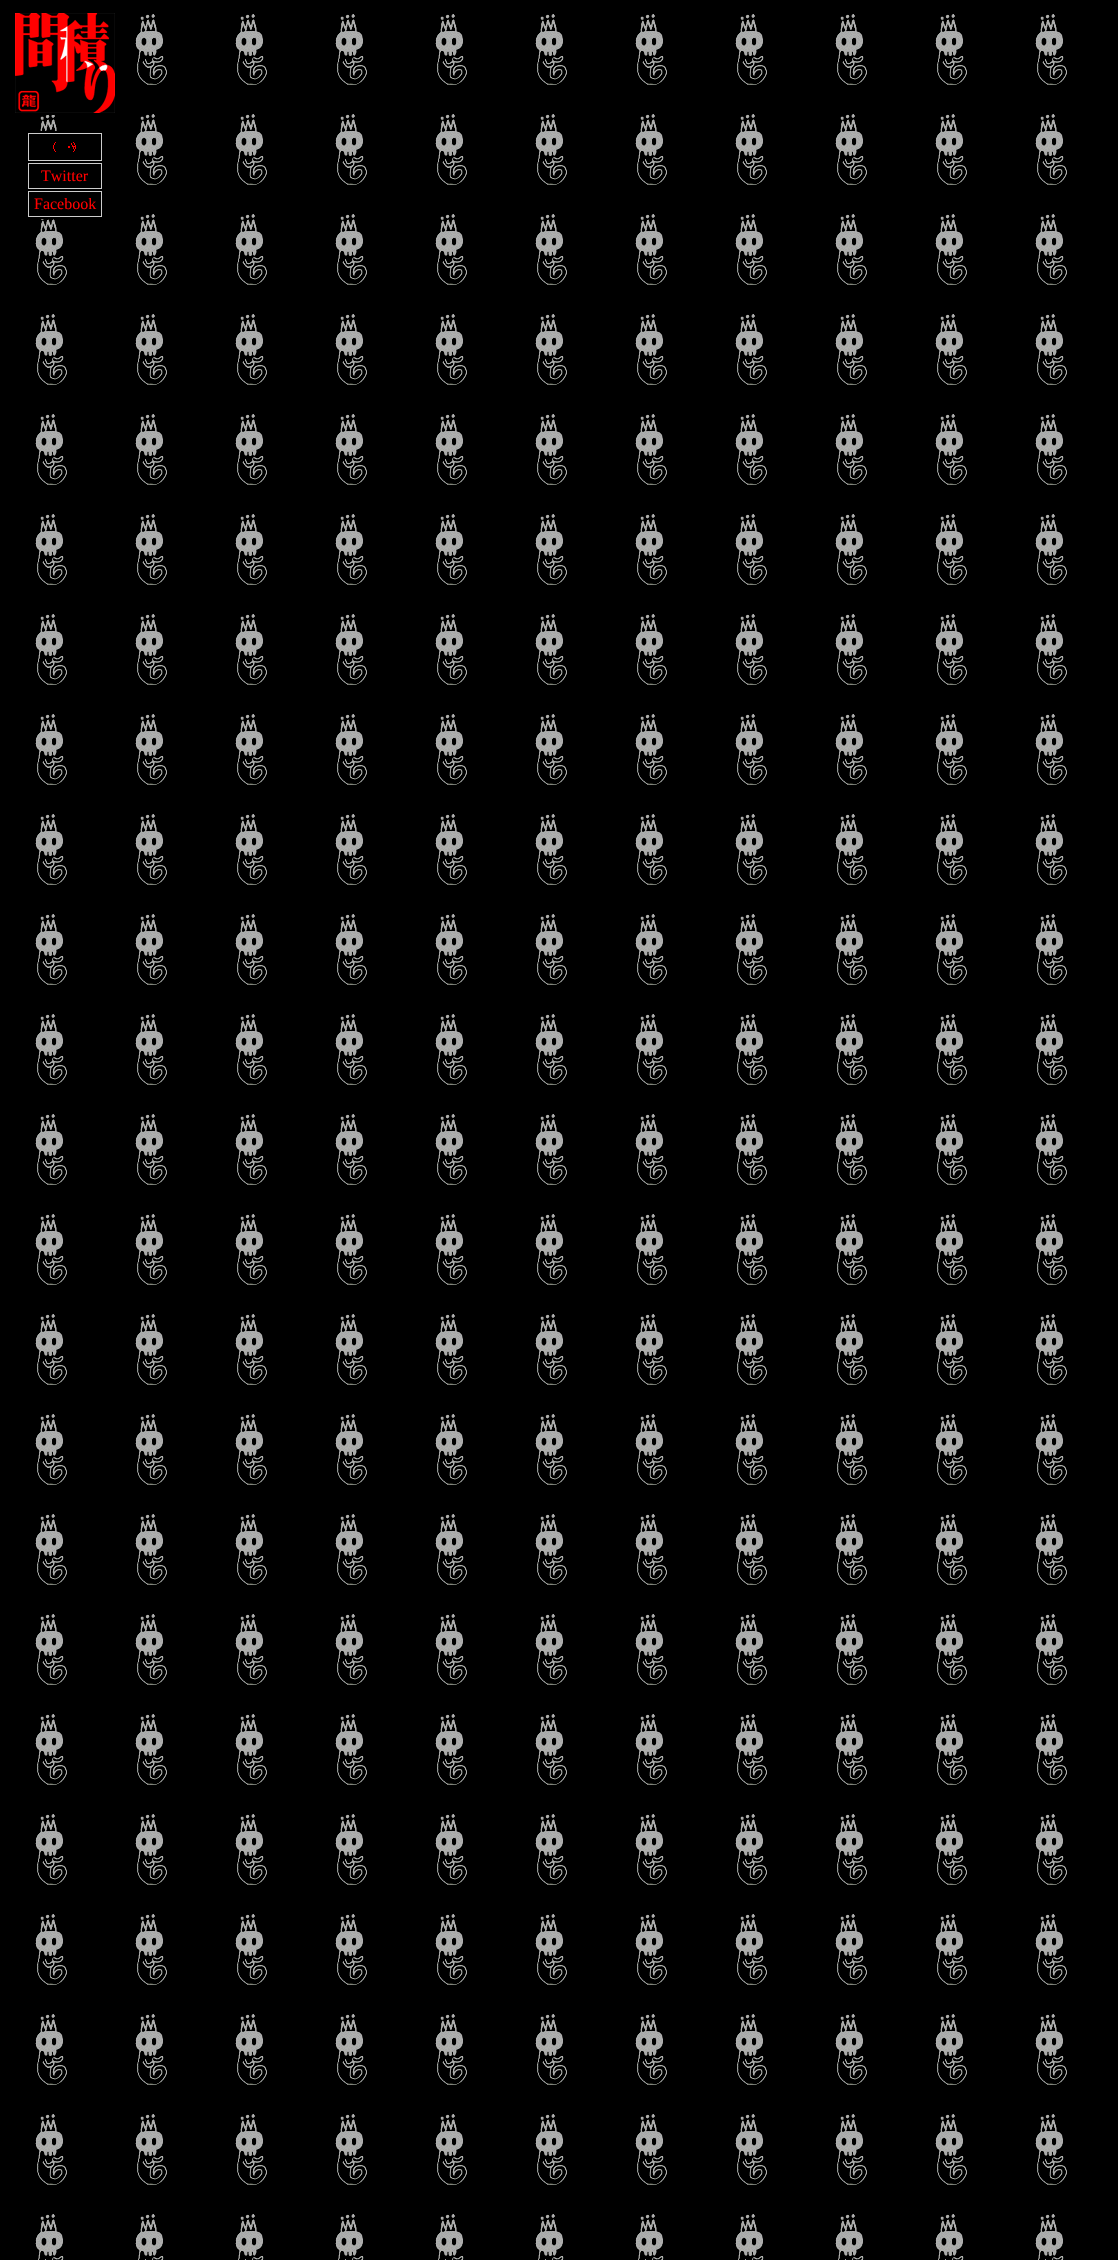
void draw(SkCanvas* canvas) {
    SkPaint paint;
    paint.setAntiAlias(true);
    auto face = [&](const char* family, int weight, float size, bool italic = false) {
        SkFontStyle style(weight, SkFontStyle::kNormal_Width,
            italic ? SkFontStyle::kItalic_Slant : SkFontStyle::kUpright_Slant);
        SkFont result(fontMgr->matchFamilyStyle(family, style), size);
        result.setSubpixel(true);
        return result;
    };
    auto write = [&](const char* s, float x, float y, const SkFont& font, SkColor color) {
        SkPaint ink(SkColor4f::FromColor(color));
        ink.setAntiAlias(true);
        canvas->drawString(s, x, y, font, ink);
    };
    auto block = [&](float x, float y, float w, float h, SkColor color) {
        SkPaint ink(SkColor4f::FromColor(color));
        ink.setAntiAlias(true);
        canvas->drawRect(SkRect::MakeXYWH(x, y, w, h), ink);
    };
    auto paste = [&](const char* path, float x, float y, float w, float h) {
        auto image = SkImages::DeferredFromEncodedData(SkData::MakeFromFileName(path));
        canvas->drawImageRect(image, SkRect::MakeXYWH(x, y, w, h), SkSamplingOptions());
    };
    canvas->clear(SK_ColorBLACK);
    paste("pic1.png", 35, 14, 1032, 2246);
    block(35, 14, 32, 101, SK_ColorBLACK);
    paste("pic2.png", 15, 13, 100, 100);
    block(35, 131, 32, 88, SK_ColorBLACK);
    paint.setStyle(SkPaint::kStroke_Style);
    paint.setStrokeWidth(1);
    paint.setColor(SkColorSetRGB(204, 204, 204));
    canvas->drawRect(SkRect::MakeXYWH(28.5f, 133.5f, 73, 27), paint);
    paste("pic3.png", 53, 142, 23, 10);
    canvas->drawRect(SkRect::MakeXYWH(28.5f, 163.5f, 73, 25), paint);
    auto kFont1 = face("Liberation Serif", 400, 16);
    write("Twitter", 41, 181, kFont1, SkColorSetRGB(255, 0, 0));
    canvas->drawRect(SkRect::MakeXYWH(28.5f, 191.5f, 73, 25), paint);
    write("Facebook", 34, 209, kFont1, SkColorSetRGB(255, 0, 0));
}
